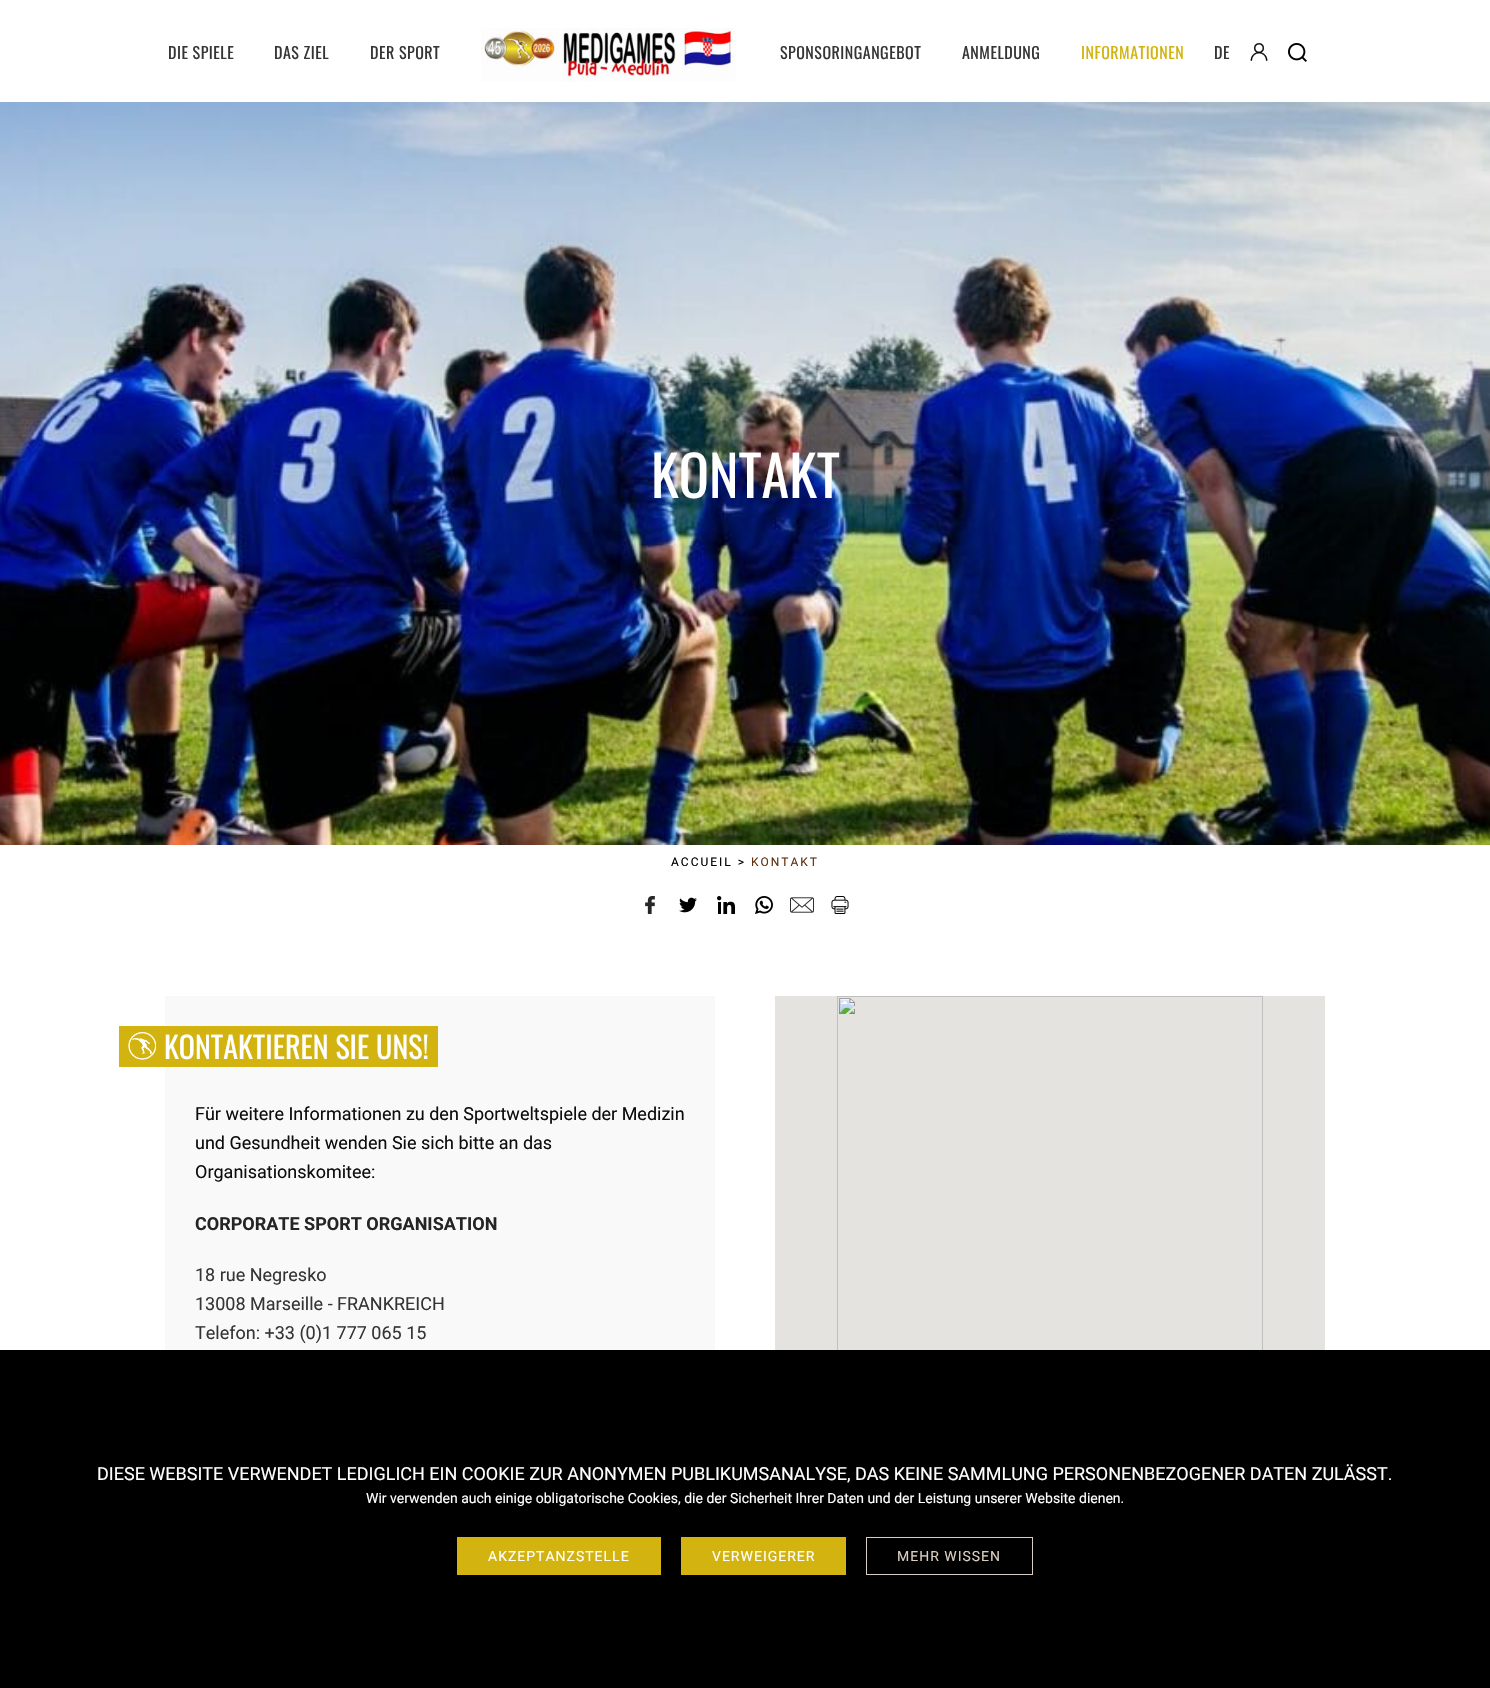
void draw(SkCanvas* canvas) {
    SkPaint paint;
    paint.setAntiAlias(true);
    auto face = [&](const char* family, int weight, float size, bool italic = false) {
        SkFontStyle style(weight, SkFontStyle::kNormal_Width,
            italic ? SkFontStyle::kItalic_Slant : SkFontStyle::kUpright_Slant);
        SkFont result(fontMgr->matchFamilyStyle(family, style), size);
        result.setSubpixel(true);
        return result;
    };
    auto write = [&](const char* s, float x, float y, const SkFont& font, SkColor color) {
        SkPaint ink(SkColor4f::FromColor(color));
        ink.setAntiAlias(true);
        canvas->drawString(s, x, y, font, ink);
    };
    auto writeSpaced = [&](const char* s, float x, float y, const SkFont& font, const SkPaint& ink, float letter, float word) {
        std::vector<SkGlyphID> glyphs(font.countText(s, strlen(s), SkTextEncoding::kUTF8));
        std::vector<float> xs(glyphs.size());
        font.textToGlyphs(s, strlen(s), SkTextEncoding::kUTF8, glyphs);
        font.getXPos(glyphs, xs, x);
        float extra = 0;
        for (size_t i = 0; i < glyphs.size(); i++) {
            xs[i] += extra;
            extra += letter + word * (glyphs[i] == font.unicharToGlyph(' '));
        }
        canvas->drawTextBlob(SkTextBlob::MakeFromPosHGlyphs(glyphs, xs, y, font), 0, 0, ink);
    };
    auto block = [&](float x, float y, float w, float h, SkColor color) {
        SkPaint ink(SkColor4f::FromColor(color));
        ink.setAntiAlias(true);
        canvas->drawRect(SkRect::MakeXYWH(x, y, w, h), ink);
    };
    auto paste = [&](const char* path, float x, float y, float w, float h) {
        auto image = SkImages::DeferredFromEncodedData(SkData::MakeFromFileName(path));
        canvas->drawImageRect(image, SkRect::MakeXYWH(x, y, w, h), SkSamplingOptions());
    };
    canvas->clear(SK_ColorWHITE);
    auto kFont1 = face("Oswald", 400, 16);
    paint.setColor(SkColorSetRGB(53, 53, 53));
    writeSpaced("DIE SPIELE", 168, 59, kFont1, paint, 0.5f, 0);
    writeSpaced("DAS ZIEL", 274, 59, kFont1, paint, 0.5f, 0);
    writeSpaced("DER SPORT", 370, 59, kFont1, paint, 0.5f, 0);
    paste("pic1.png", 481, 28, 255, 54);
    writeSpaced("SPONSORINGANGEBOT", 780, 59, kFont1, paint, 0.5f, 0);
    writeSpaced("ANMELDUNG", 962, 59, kFont1, paint, 0.5f, 0);
    paint.setColor(SkColorSetRGB(211, 179, 16));
    writeSpaced("INFORMATIONEN", 1081, 59, kFont1, paint, 0.5f, 0);
    paint.setColor(SkColorSetRGB(53, 53, 53));
    writeSpaced("DE", 1214, 59, kFont1, paint, 0.5f, 0);
    paste("pic2.png", 1250, 43, 18, 18);
    paste("pic3.png", 1288, 43, 19, 19);
    paste("pic4.png", 0, 102, 1490, 743);
    auto kFont2 = face("Oswald", 400, 56);
    write("KONTAKT", 651, 498, kFont2, SK_ColorWHITE);
    auto kFont3 = face("Roboto", 400, 12);
    paint.setColor(SK_ColorBLACK);
    writeSpaced("ACCUEIL >", 671, 866, kFont3, paint, 2, 0);
    paint.setColor(SkColorSetRGB(97, 51, 19));
    writeSpaced("KONTAKT", 751, 866, kFont3, paint, 2, 0);
    paste("pic5.png", 645, 896, 10, 18);
    paste("pic6.png", 679, 897, 18, 16);
    paste("pic7.png", 717, 896, 18, 18);
    paste("pic8.png", 755, 896, 18, 18);
    paste("pic9.png", 790, 897, 24, 16);
    paste("pic10.png", 831, 896, 18, 18);
    block(165, 996, 550, 354, SkColorSetRGB(249, 249, 249));
    block(119, 1026, 319, 41, SkColorSetRGB(211, 179, 16));
    paste("pic11.png", 128, 1032, 28, 28);
    auto kFont4 = face("Oswald", 400, 30);
    write("KONTAKTIEREN SIE UNS!", 164, 1059, kFont4, SK_ColorWHITE);
    auto kFont5 = face("Roboto", 400, 18);
    write("Für weitere Informationen zu den Sportweltspiele der Medizin", 195, 1120, kFont5, SkColorSetRGB(13, 13, 13));
    write("und Gesundheit wenden Sie sich bitte an das", 195, 1149, kFont5, SkColorSetRGB(13, 13, 13));
    write("Organisationskomitee:", 195, 1178, kFont5, SkColorSetRGB(13, 13, 13));
    auto kFont6 = face("Roboto", 700, 18);
    write("CORPORATE SPORT ORGANISATION", 195, 1230, kFont6, SkColorSetRGB(37, 37, 37));
    write("18 rue Negresko", 195, 1281, kFont5, SkColorSetRGB(53, 53, 53));
    write("13008 Marseille - FRANKREICH", 195, 1310, kFont5, SkColorSetRGB(53, 53, 53));
    write("Telefon: +33 (0)1 777 065 15", 195, 1339, kFont5, SkColorSetRGB(53, 53, 53));
    paste("pic12.png", 775, 996, 550, 354);
    block(0, 1350, 1490, 338, SK_ColorBLACK);
    write("DIESE WEBSITE VERWENDET LEDIGLICH EIN COOKIE ZUR ANONYMEN PUBLIKUMSANALYSE, DAS KEINE SAMMLUNG PERSONENBEZOGENER DATEN ZULÄSST.", 97, 1480, kFont5, SK_ColorWHITE);
    auto kFont7 = face("Roboto", 400, 14);
    write("Wir verwenden auch einige obligatorische Cookies, die der Sicherheit Ihrer Daten und der Leistung unserer Website dienen.", 366, 1503, kFont7, SK_ColorWHITE);
    block(457, 1537, 204, 38, SkColorSetRGB(211, 179, 16));
    paint.setColor(SK_ColorWHITE);
    writeSpaced("AKZEPTANZSTELLE", 488, 1561, kFont7, paint, 1, 0);
    block(681, 1537, 165, 38, SkColorSetRGB(211, 179, 16));
    writeSpaced("VERWEIGERER", 712, 1561, kFont7, paint, 1, 0);
    paint.setStyle(SkPaint::kStroke_Style);
    paint.setStrokeWidth(1);
    paint.setColor(SkColorSetRGB(217, 206, 193));
    canvas->drawRect(SkRect::MakeXYWH(866.5f, 1537.5f, 166, 37), paint);
    paint.setStyle(SkPaint::kFill_Style);
    writeSpaced("MEHR WISSEN", 897, 1561, kFont7, paint, 1, 0);
}
